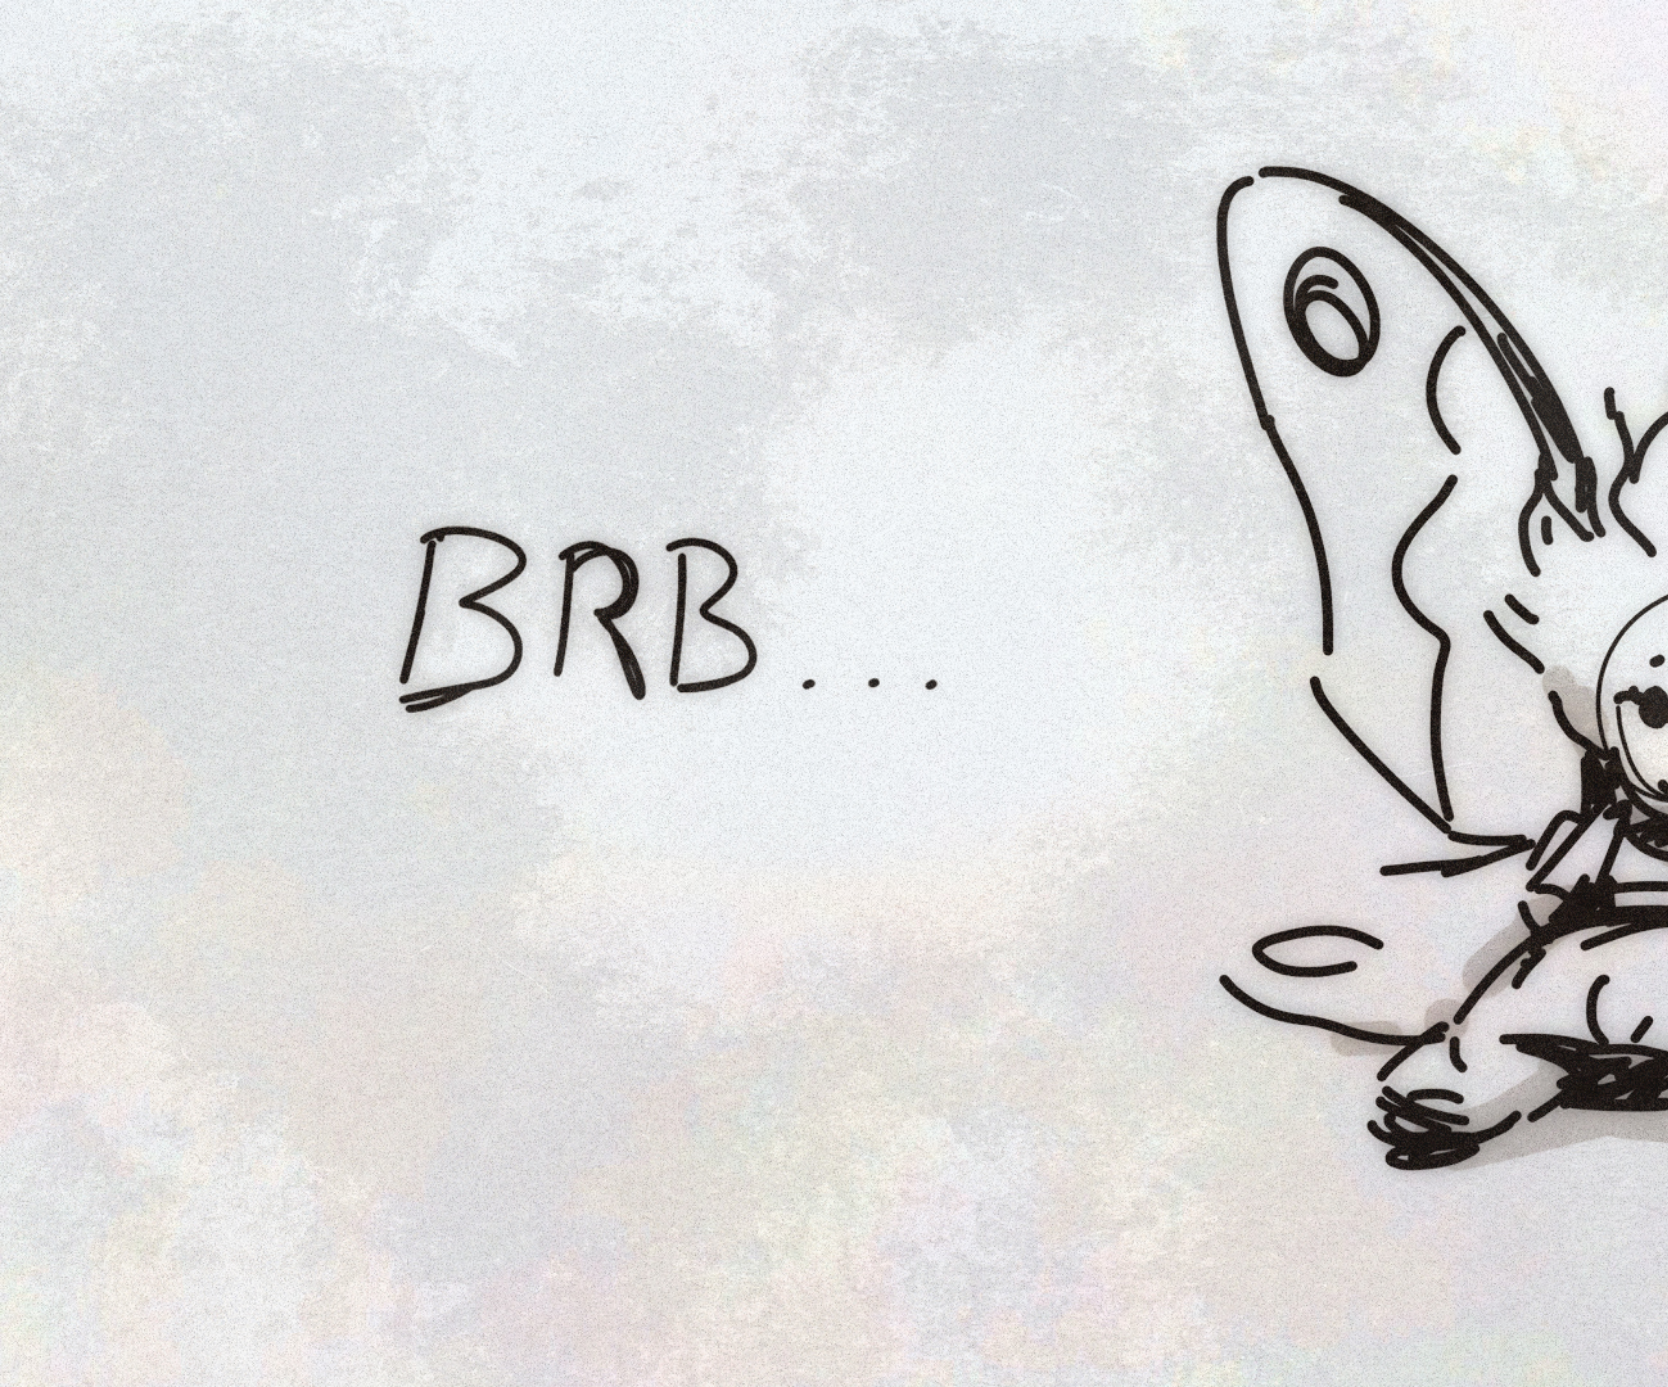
void draw(SkCanvas* canvas) {
    SkPaint paint;
    paint.setAntiAlias(true);
    auto paste = [&](const char* path, float x, float y, float w, float h) {
        auto image = SkImages::DeferredFromEncodedData(SkData::MakeFromFileName(path));
        canvas->drawImageRect(image, SkRect::MakeXYWH(x, y, w, h), SkSamplingOptions());
    };
    canvas->clear(SK_ColorWHITE);
    paste("pic1.png", 0, 0, 1668, 1387);
}
